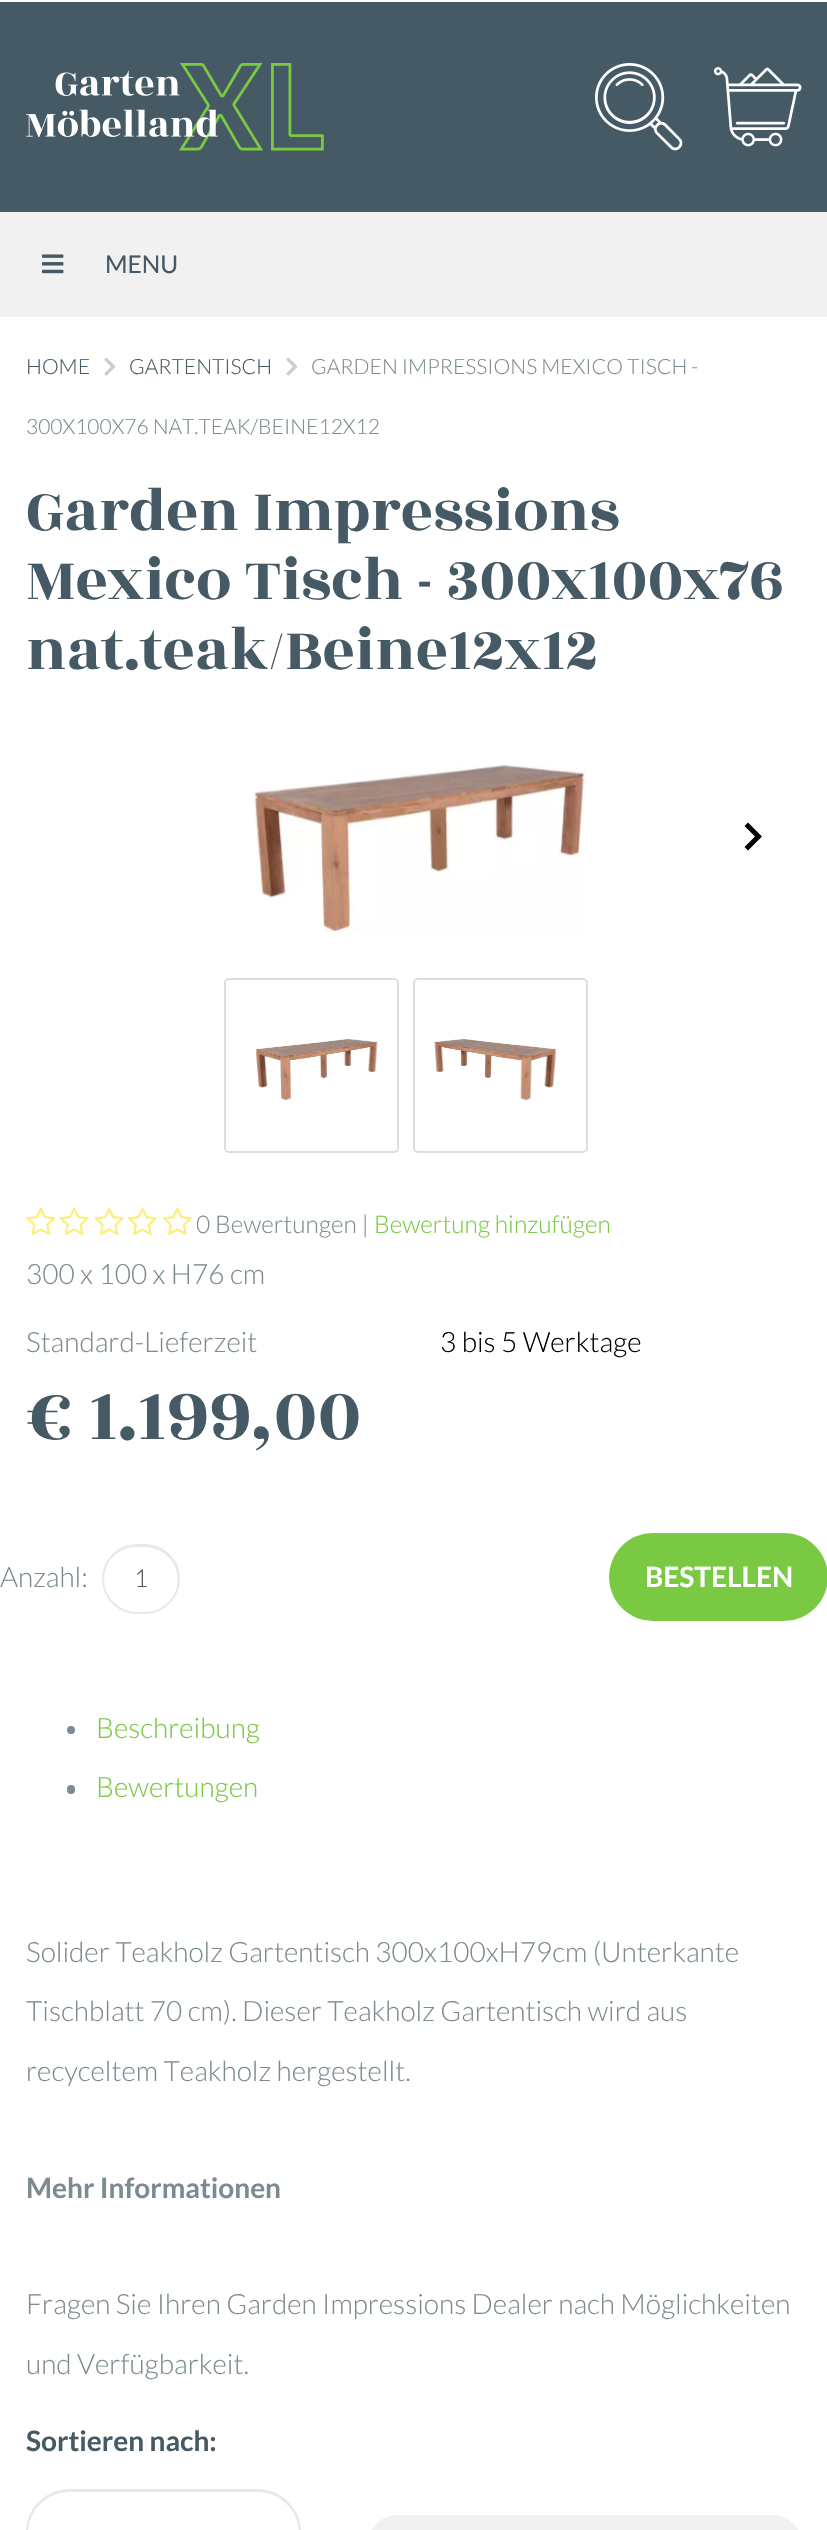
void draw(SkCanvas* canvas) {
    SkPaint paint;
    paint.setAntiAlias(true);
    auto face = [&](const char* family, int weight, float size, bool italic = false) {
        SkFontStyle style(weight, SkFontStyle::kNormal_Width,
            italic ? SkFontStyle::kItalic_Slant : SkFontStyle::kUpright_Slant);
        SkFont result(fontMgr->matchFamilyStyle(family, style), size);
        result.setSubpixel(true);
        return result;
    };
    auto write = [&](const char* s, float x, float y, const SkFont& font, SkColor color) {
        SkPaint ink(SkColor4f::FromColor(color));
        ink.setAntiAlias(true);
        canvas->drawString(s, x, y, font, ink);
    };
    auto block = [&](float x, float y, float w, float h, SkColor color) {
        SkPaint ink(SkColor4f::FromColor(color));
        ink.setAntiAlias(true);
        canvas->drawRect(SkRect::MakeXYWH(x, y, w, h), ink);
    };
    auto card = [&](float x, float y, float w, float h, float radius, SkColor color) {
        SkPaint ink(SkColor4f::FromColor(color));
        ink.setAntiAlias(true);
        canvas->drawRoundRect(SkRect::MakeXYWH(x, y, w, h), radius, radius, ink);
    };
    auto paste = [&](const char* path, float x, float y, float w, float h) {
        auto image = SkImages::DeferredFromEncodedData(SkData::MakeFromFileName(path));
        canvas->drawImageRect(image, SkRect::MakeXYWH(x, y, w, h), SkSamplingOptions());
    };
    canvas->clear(SK_ColorWHITE);
    block(0, 2, 827, 210, SkColorSetRGB(69, 90, 100));
    paste("pic1.png", 26, 63, 298, 88);
    paste("pic2.png", 595, 63, 88, 88);
    paste("pic3.png", 714, 67, 88, 80);
    block(0, 212, 827, 105, SkColorSetRGB(241, 241, 241));
    paste("pic4.png", 42, 254, 22, 20);
    auto kFont1 = face("Lato", 400, 24.5f);
    write("MENU", 105, 273, kFont1, SkColorSetRGB(69, 90, 100));
    auto kFont2 = face("Lato", 300, 21);
    write("HOME", 26, 374, kFont2, SkColorSetRGB(69, 90, 100));
    paste("pic5.png", 104, 357, 12, 19);
    write("GARTENTISCH", 129, 374, kFont2, SkColorSetRGB(69, 90, 100));
    paste("pic5.png", 286, 357, 12, 19);
    write("GARDEN IMPRESSIONS MEXICO TISCH -", 311, 374, kFont2, SkColorSetRGB(124, 139, 146));
    write("300X100X76 NAT.TEAK/BEINE12X12", 26, 434, kFont2, SkColorSetRGB(124, 139, 146));
    auto kFont3 = face("Rozha One", 400, 63);
    write("Garden Impressions", 26, 530, kFont3, SkColorSetRGB(69, 90, 100));
    write("Mexico Tisch - 300x100x76", 26, 599, kFont3, SkColorSetRGB(69, 90, 100));
    write("nat.teak/Beine12x12", 26, 669, kFont3, SkColorSetRGB(69, 90, 100));
    paste("pic6.png", 253, 765, 332, 167);
    paint.setColor(SK_ColorBLACK);
    canvas->drawPath(SkPathBuilder().moveTo(748, 822.5f).lineTo(744.5f, 826).lineTo(755, 836.5f).lineTo(744.5f, 847).lineTo(748, 850.5f).lineTo(762, 836.5f).close().detach(), paint);
    paint.setStyle(SkPaint::kStroke_Style);
    paint.setStrokeWidth(2);
    paint.setColor(SkColorSetRGB(221, 221, 221));
    canvas->drawRoundRect(SkRect::MakeXYWH(225, 979, 173, 173), 4, 4, paint);
    paste("pic7.png", 255, 1038, 123, 63);
    canvas->drawRoundRect(SkRect::MakeXYWH(414, 979, 173, 173), 4, 4, paint);
    paste("pic8.png", 434, 1038, 123, 63);
    paste("pic9.png", 26, 1207, 30, 29);
    paste("pic10.png", 59, 1207, 30, 29);
    paste("pic11.png", 94, 1207, 30, 29);
    paste("pic12.png", 127, 1207, 30, 29);
    paste("pic12.png", 162, 1207, 30, 29);
    auto kFont4 = face("Lato", 300, 24.5f);
    write("0 Bewertungen |", 196, 1233, kFont4, SkColorSetRGB(124, 139, 146));
    write("Bewertung hinzufügen", 374, 1233, kFont4, SkColorSetRGB(122, 201, 67));
    auto kFont5 = face("Lato", 300, 28);
    write("300 x 100 x H76 cm", 26, 1284, kFont5, SkColorSetRGB(124, 139, 146));
    write("Standard-Lieferzeit", 26, 1352, kFont5, SkColorSetRGB(124, 139, 146));
    write("3 bis 5 Werktage", 440, 1352, kFont5, SK_ColorBLACK);
    auto kFont6 = face("Rozha One", 400, 77);
    write("€ 1.199,00", 26, 1439, kFont6, SkColorSetRGB(69, 90, 100));
    write("Anzahl:", 0, 1587, kFont5, SkColorSetRGB(124, 139, 146));
    paint.setStyle(SkPaint::kFill_Style);
    paint.setColor(SkColorSetRGB(236, 236, 236));
    canvas->drawPath(SkPathBuilder().moveTo(136, 1547).cubicTo(144, 1547, 151, 1547, 158, 1550).cubicTo(175, 1557, 182, 1577, 175, 1594).cubicTo(178, 1589, 179, 1584, 179, 1578).cubicTo(179, 1560, 164, 1545, 146, 1545).lineTo(136, 1545).cubicTo(118, 1545, 103, 1560, 103, 1578).lineTo(103, 1579).cubicTo(103, 1562, 118, 1547, 136, 1547).close().detach(), paint);
    paint.setStyle(SkPaint::kStroke_Style);
    paint.setColor(SkColorSetRGB(232, 232, 232));
    canvas->drawRoundRect(SkRect::MakeXYWH(103, 1545, 76, 68), 34, 34, paint);
    write("1", 134, 1587, kFont4, SkColorSetRGB(85, 85, 85));
    card(609, 1533, 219, 88, 44, SkColorSetRGB(122, 201, 67));
    auto kFont7 = face("Lato", 700, 28);
    write("BESTELLEN", 645, 1587, kFont7, SK_ColorWHITE);
    paint.setStyle(SkPaint::kFill_Style);
    paint.setColor(SkColorSetRGB(124, 139, 146));
    canvas->drawCircle(71, 1730, 4, paint);
    write("Beschreibung", 96, 1738, kFont5, SkColorSetRGB(122, 201, 67));
    card(67, 1785, 8, 9, 4, SkColorSetRGB(124, 139, 146));
    write("Bewertungen", 96, 1797, kFont5, SkColorSetRGB(122, 201, 67));
    write("Solider Teakholz Gartentisch 300x100xH79cm (Unterkante", 26, 1962, kFont5, SkColorSetRGB(124, 139, 146));
    write("Tischblatt 70 cm). Dieser Teakholz Gartentisch wird aus", 26, 2021, kFont5, SkColorSetRGB(124, 139, 146));
    write("recyceltem Teakholz hergestellt.", 26, 2081, kFont5, SkColorSetRGB(124, 139, 146));
    write("Mehr Informationen", 26, 2198, kFont7, SkColorSetRGB(124, 139, 146));
    write("Fragen Sie Ihren Garden Impressions Dealer nach Möglichkeiten", 26, 2314, kFont5, SkColorSetRGB(124, 139, 146));
    write("und Verfügbarkeit.", 26, 2374, kFont5, SkColorSetRGB(124, 139, 146));
    write("Sortieren nach:", 26, 2451, kFont7, SkColorSetRGB(69, 90, 100));
    paint.setColor(SkColorSetRGB(236, 236, 236));
    canvas->drawPath(SkPathBuilder().moveTo(70, 2492).lineTo(257, 2492).cubicTo(280, 2492, 298, 2510, 299, 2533).lineTo(299, 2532).cubicTo(299, 2509, 280, 2490, 257, 2490).lineTo(70, 2490).cubicTo(47, 2490, 28, 2509, 28, 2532).lineTo(28, 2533).cubicTo(29, 2510, 47, 2492, 70, 2492).close().detach(), paint);
    paint.setStyle(SkPaint::kStroke_Style);
    paint.setColor(SkColorSetRGB(232, 232, 232));
    canvas->drawRoundRect(SkRect::MakeXYWH(27, 2490, 273, 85), 42.5f, 42.5f, paint);
    card(368, 2515, 434, 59, 43.5f, SkColorSetRGB(241, 241, 241));
}
